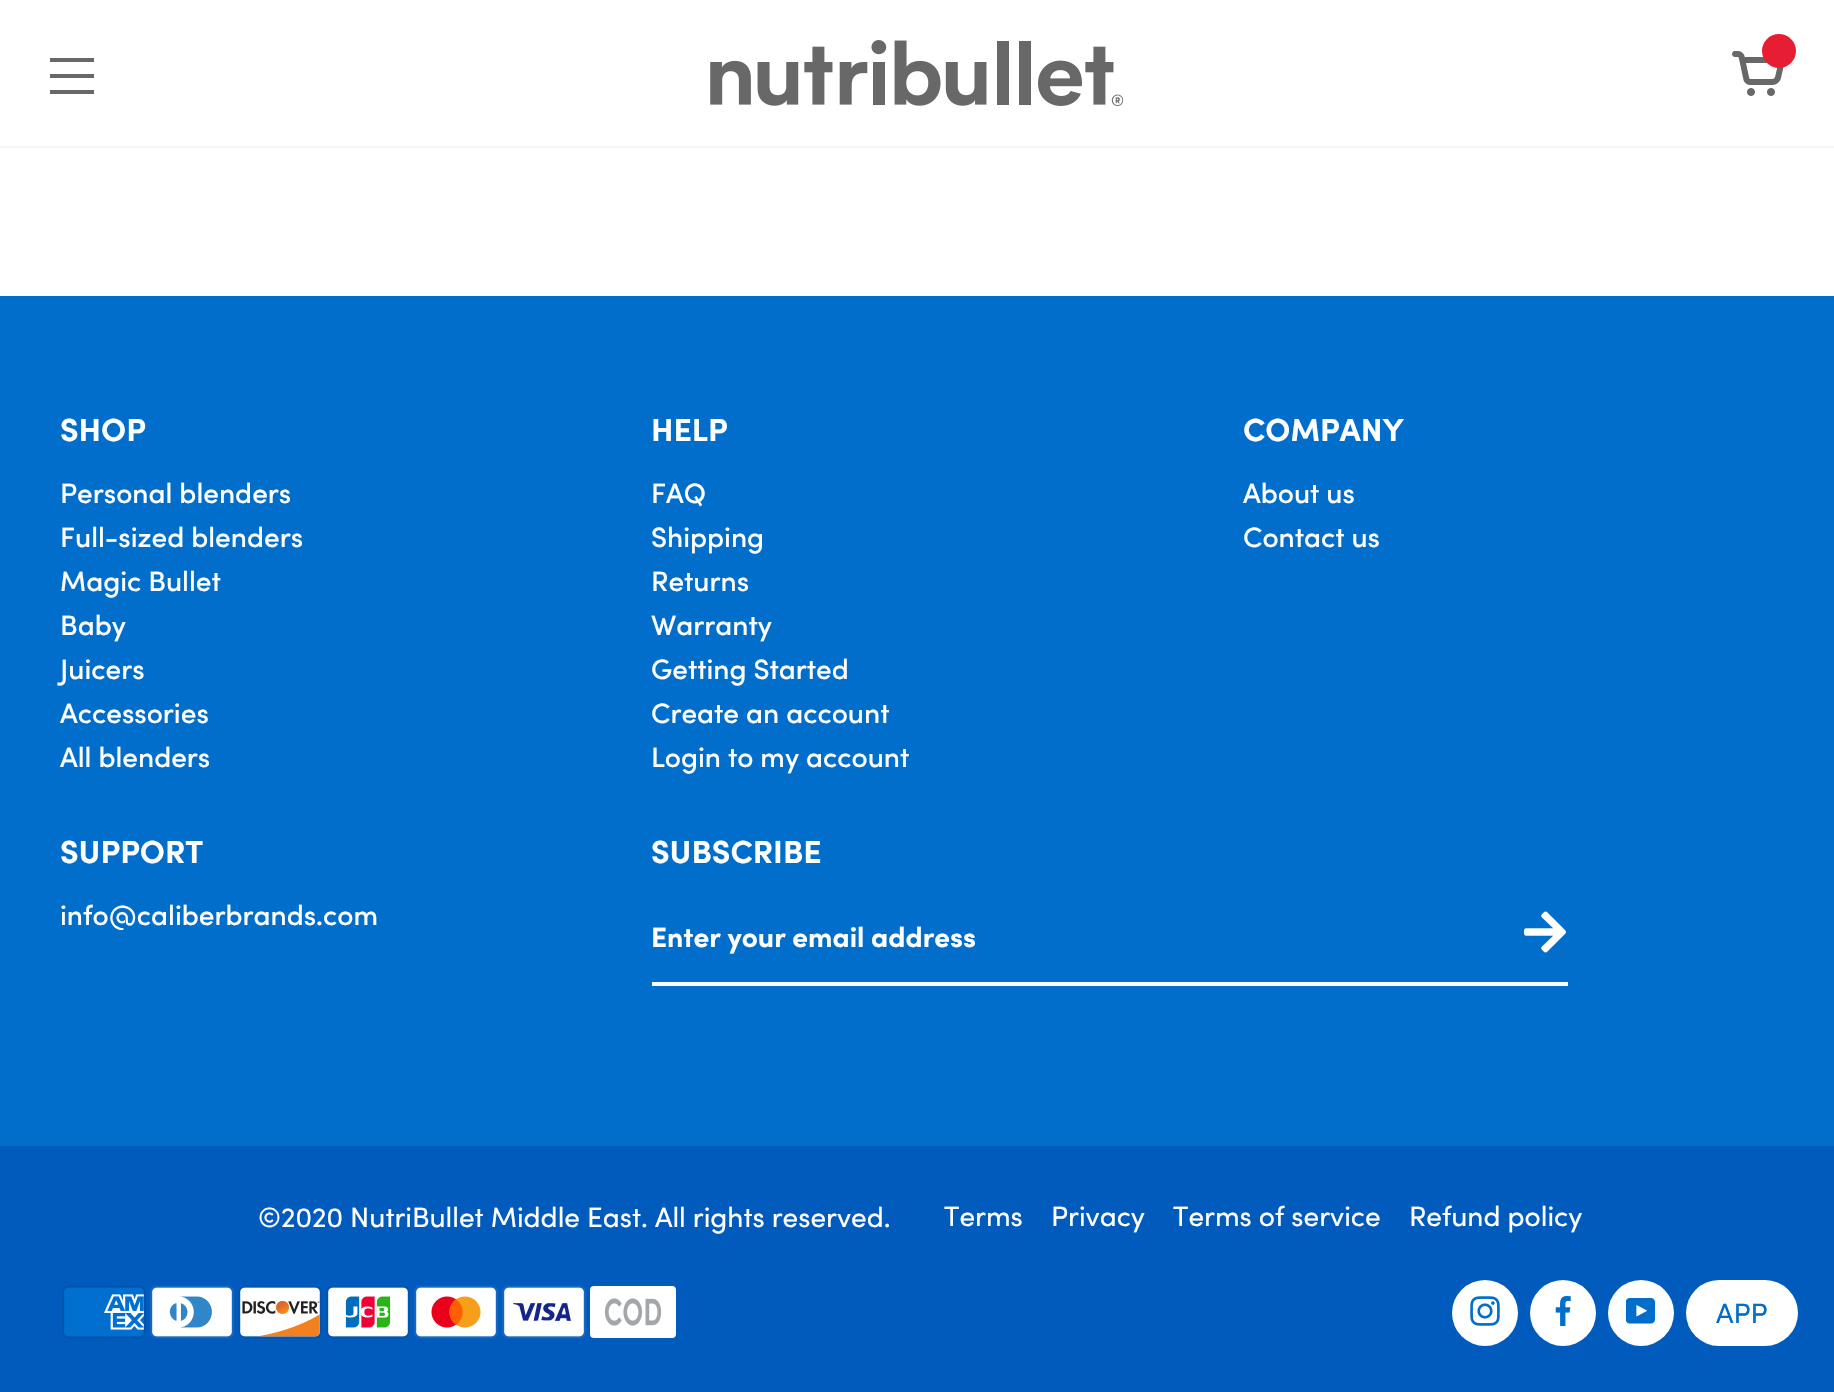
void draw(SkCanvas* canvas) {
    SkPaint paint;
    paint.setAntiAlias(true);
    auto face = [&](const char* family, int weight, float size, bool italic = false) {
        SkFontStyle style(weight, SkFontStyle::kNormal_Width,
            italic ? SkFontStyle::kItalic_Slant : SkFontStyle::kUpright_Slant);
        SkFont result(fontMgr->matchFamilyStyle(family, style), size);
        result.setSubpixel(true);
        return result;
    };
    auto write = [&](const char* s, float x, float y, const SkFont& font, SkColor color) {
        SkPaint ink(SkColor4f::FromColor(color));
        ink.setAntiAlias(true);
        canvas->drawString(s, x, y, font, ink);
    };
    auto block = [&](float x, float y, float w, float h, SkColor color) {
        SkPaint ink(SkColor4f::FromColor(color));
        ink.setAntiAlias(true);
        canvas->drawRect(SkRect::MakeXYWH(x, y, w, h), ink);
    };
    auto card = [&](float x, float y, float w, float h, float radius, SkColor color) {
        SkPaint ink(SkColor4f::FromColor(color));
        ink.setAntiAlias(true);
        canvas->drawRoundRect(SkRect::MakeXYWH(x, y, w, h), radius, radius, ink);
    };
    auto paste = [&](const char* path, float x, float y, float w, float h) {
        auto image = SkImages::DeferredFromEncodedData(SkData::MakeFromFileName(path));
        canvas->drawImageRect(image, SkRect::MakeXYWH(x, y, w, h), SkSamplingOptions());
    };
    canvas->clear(SK_ColorWHITE);
    block(0, 146, 1834, 2, SkColorSetRGB(245, 245, 245));
    block(50, 58, 44, 4, SkColorSetRGB(104, 104, 104));
    block(50, 74, 44, 4, SkColorSetRGB(104, 104, 104));
    block(50, 90, 44, 4, SkColorSetRGB(104, 104, 104));
    paste("pic1.png", 710, 40, 414, 66);
    paste("pic2.png", 1732, 51, 52, 45);
    paint.setColor(SkColorSetRGB(231, 29, 52));
    canvas->drawCircle(1779, 51, 17, paint);
    block(0, 296, 1834, 850, SkColorSetRGB(0, 110, 202));
    auto kFont1 = face("Sofia", 700, 32);
    write("SHOP", 60, 441, kFont1, SK_ColorWHITE);
    auto kFont2 = face("Sofia", 500, 28);
    write("Personal blenders", 60, 503, kFont2, SK_ColorWHITE);
    write("Full-sized blenders", 60, 547, kFont2, SK_ColorWHITE);
    write("Magic Bullet", 60, 591, kFont2, SK_ColorWHITE);
    write("Baby", 60, 635, kFont2, SK_ColorWHITE);
    write("Juicers", 60, 679, kFont2, SK_ColorWHITE);
    write("Accessories", 60, 723, kFont2, SK_ColorWHITE);
    write("All blenders", 60, 767, kFont2, SK_ColorWHITE);
    write("HELP", 651, 441, kFont1, SK_ColorWHITE);
    write("FAQ", 651, 503, kFont2, SK_ColorWHITE);
    write("Shipping", 651, 547, kFont2, SK_ColorWHITE);
    write("Returns", 651, 591, kFont2, SK_ColorWHITE);
    write("Warranty", 651, 635, kFont2, SK_ColorWHITE);
    write("Getting Started", 651, 679, kFont2, SK_ColorWHITE);
    write("Create an account", 651, 723, kFont2, SK_ColorWHITE);
    write("Login to my account", 651, 767, kFont2, SK_ColorWHITE);
    write("COMPANY", 1243, 441, kFont1, SK_ColorWHITE);
    write("About us", 1243, 503, kFont2, SK_ColorWHITE);
    write("Contact us", 1243, 547, kFont2, SK_ColorWHITE);
    write("SUPPORT", 60, 863, kFont1, SK_ColorWHITE);
    write("info@caliberbrands.com", 60, 925, kFont2, SK_ColorWHITE);
    write("SUBSCRIBE", 651, 863, kFont1, SK_ColorWHITE);
    block(652, 982, 916, 4, SK_ColorWHITE);
    auto kFont3 = face("Sofia", 700, 28);
    write("Enter your email address", 651, 947, kFont3, SK_ColorWHITE);
    paste("pic3.png", 1524, 911, 42, 42);
    block(0, 1146, 1834, 246, SkColorSetRGB(1, 91, 188));
    auto kFont4 = face("Sofia", 400, 28);
    write("©2020 NutriBullet Middle East. All rights reserved.", 258, 1227, kFont4, SK_ColorWHITE);
    write("Terms", 944, 1226, kFont4, SK_ColorWHITE);
    write("Privacy", 1051, 1226, kFont4, SK_ColorWHITE);
    write("Terms of service", 1173, 1226, kFont4, SK_ColorWHITE);
    write("Refund policy", 1409, 1226, kFont4, SK_ColorWHITE);
    paste("pic4.png", 62, 1285, 84, 54);
    paste("pic5.png", 150, 1285, 84, 54);
    paste("pic6.png", 238, 1285, 84, 54);
    paste("pic7.png", 326, 1285, 84, 54);
    paste("pic8.png", 414, 1285, 84, 54);
    paste("pic9.png", 502, 1285, 84, 54);
    card(590, 1286, 86, 52, 4, SK_ColorWHITE);
    paste("pic10.png", 604, 1298, 58, 28);
    paint.setColor(SK_ColorWHITE);
    canvas->drawCircle(1485, 1313, 33, paint);
    paste("pic11.png", 1470, 1296, 30, 30);
    canvas->drawCircle(1563, 1313, 33, paint);
    paste("pic12.png", 1555, 1296, 16, 30);
    canvas->drawCircle(1641, 1313, 33, paint);
    paste("pic13.png", 1626, 1298, 30, 26);
    card(1686, 1280, 112, 66, 33, SK_ColorWHITE);
    write("APP", 1716, 1323, kFont4, SkColorSetRGB(0, 110, 202));
}
